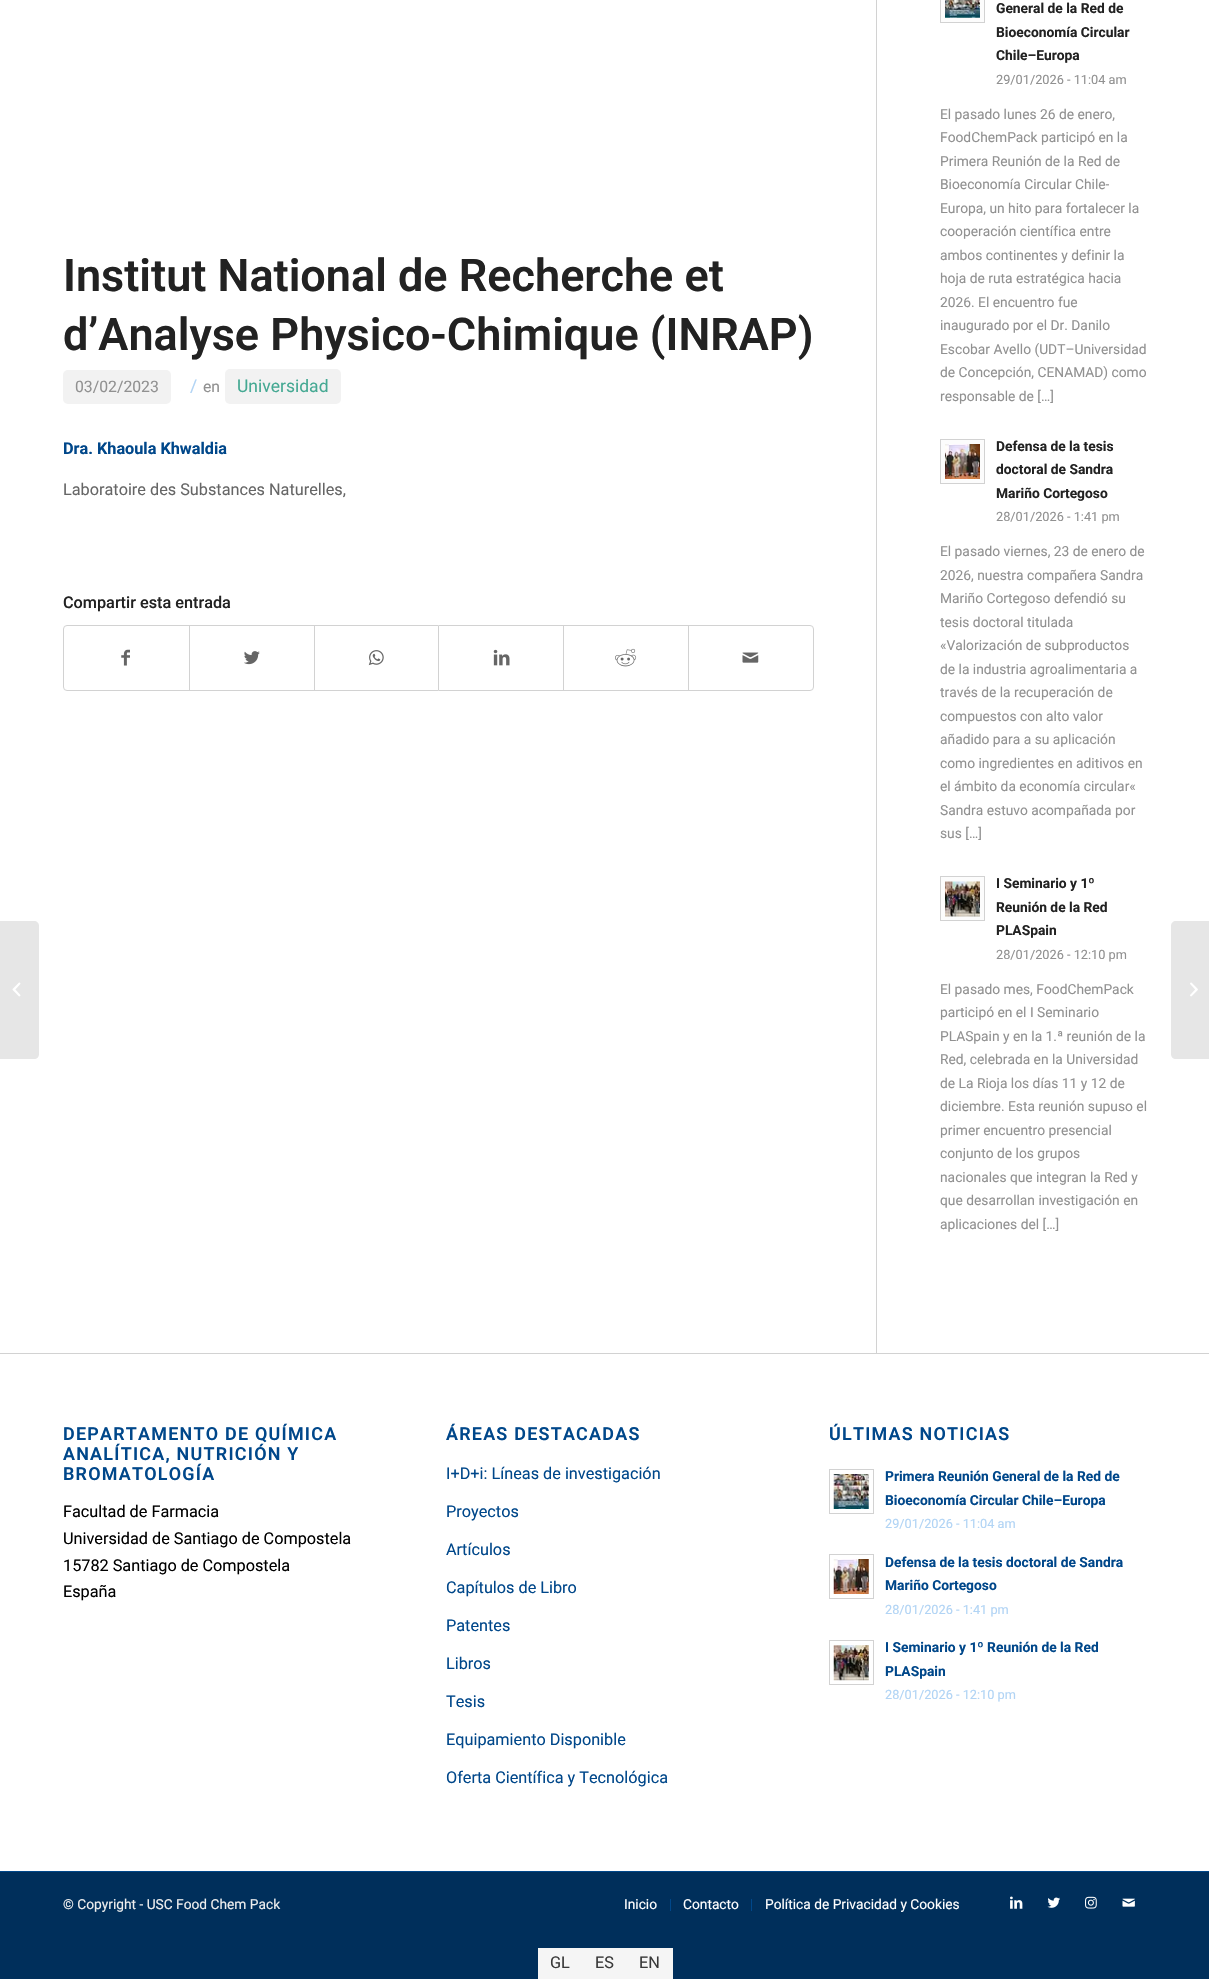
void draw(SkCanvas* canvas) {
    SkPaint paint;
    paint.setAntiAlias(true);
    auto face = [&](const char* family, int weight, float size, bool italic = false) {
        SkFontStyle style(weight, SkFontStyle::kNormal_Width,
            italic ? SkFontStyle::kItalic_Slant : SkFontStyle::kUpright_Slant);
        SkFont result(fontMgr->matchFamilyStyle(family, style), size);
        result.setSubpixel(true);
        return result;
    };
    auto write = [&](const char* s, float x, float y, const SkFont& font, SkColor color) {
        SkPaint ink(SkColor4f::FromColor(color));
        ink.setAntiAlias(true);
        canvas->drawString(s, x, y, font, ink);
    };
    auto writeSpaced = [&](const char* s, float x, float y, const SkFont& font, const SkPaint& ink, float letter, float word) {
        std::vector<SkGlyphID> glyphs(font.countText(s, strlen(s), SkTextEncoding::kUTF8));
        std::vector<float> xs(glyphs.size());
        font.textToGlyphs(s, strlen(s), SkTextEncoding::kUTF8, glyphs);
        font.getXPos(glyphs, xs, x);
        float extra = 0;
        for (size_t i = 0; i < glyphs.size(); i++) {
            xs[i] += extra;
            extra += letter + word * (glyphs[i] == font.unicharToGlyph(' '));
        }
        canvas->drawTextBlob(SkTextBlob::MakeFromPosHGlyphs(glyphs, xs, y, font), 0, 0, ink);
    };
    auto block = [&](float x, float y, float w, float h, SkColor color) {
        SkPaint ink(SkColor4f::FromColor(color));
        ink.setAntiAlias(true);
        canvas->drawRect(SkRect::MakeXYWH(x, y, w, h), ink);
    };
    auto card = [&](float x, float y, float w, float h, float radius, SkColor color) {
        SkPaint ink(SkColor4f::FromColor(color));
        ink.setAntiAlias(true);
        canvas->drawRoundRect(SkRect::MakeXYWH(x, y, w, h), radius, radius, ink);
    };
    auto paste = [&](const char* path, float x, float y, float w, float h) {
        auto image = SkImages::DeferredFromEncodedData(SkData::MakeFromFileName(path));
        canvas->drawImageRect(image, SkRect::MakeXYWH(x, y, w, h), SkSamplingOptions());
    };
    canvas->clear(SkColorSetRGB(0, 47, 91));
    block(0, 0, 1209, 1871, SK_ColorWHITE);
    paint.setColor(SkColorSetRGB(230, 230, 230));
    canvas->drawPath(SkPathBuilder().moveTo(0, 921).lineTo(34, 921).cubicTo(37, 921, 39, 923, 39, 926).lineTo(39, 1054).cubicTo(39, 1057, 37, 1059, 34, 1059).lineTo(0, 1059).close().detach(), paint);
    paste("pic1.png", 12, 982, 9, 15);
    auto kFont1 = face("Roboto", 600, 45);
    write("Institut National de Recherche et", 63, 291, kFont1, SkColorSetRGB(34, 34, 34));
    write("d’Analyse Physico-Chimique (INRAP)", 63, 350, kFont1, SkColorSetRGB(34, 34, 34));
    card(63, 370, 108, 34, 5, SkColorSetRGB(242, 242, 242));
    auto kFont2 = face("Roboto", 400, 15.75f);
    write("03/02/2023", 75, 392, kFont2, SkColorSetRGB(145, 145, 145));
    auto kFont3 = face("Roboto", 400, 17.5f);
    write("/", 190, 392, kFont3, SkColorSetRGB(177, 212, 245));
    write("en", 203, 392, kFont2, SkColorSetRGB(145, 145, 145));
    card(225, 369, 116, 35, 5, SkColorSetRGB(242, 242, 242));
    write("Universidad", 237, 392, kFont3, SkColorSetRGB(69, 169, 147));
    auto kFont4 = face("Roboto", 700, 16.25f);
    write("Dra. Khaoula Khwaldia", 63, 454, kFont4, SkColorSetRGB(0, 71, 138));
    auto kFont5 = face("Roboto", 400, 16.25f);
    write("Laboratoire des Substances Naturelles,", 63, 495, kFont5, SkColorSetRGB(102, 102, 102));
    auto kFont6 = face("Roboto", 500, 16.25f);
    write("Compartir esta entrada", 63, 608, kFont6, SkColorSetRGB(34, 34, 34));
    paint.setStyle(SkPaint::kStroke_Style);
    paint.setStrokeWidth(1);
    paint.setColor(SkColorSetRGB(210, 210, 210));
    canvas->drawRoundRect(SkRect::MakeXYWH(63.5f, 625.5f, 750, 65), 3.5f, 3.5f, paint);
    paste("pic2.png", 121, 649, 9, 17);
    block(189, 626, 1, 64, SkColorSetRGB(210, 210, 210));
    paste("pic3.png", 244, 651, 16, 14);
    block(314, 626, 1, 64, SkColorSetRGB(210, 210, 210));
    paste("pic4.png", 368, 650, 16, 16);
    block(438, 626, 1, 64, SkColorSetRGB(210, 210, 210));
    paste("pic5.png", 493, 649, 17, 17);
    block(563, 626, 1, 64, SkColorSetRGB(210, 210, 210));
    paste("pic6.png", 615, 648, 22, 19);
    block(688, 626, 1, 64, SkColorSetRGB(210, 210, 210));
    paste("pic7.png", 742, 652, 17, 11);
    block(876, 0, 1, 1353, SkColorSetRGB(210, 210, 210));
    paint.setStyle(SkPaint::kFill_Style);
    paint.setColor(SkColorSetRGB(252, 252, 252));
    canvas->drawRect(SkRect::MakeXYWH(940.5f, -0.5f, 44, 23), paint);
    paint.setStyle(SkPaint::kStroke_Style);
    paint.setColor(SkColorSetRGB(210, 210, 210));
    canvas->drawRect(SkRect::MakeXYWH(940.5f, -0.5f, 44, 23), paint);
    paste("pic8.png", 945, 0, 35, 18);
    auto kFont7 = face("Roboto", 700, 13.8f);
    write("General de la Red de", 996, 13, kFont7, SkColorSetRGB(34, 34, 34));
    write("Bioeconomía Circular", 996, 37, kFont7, SkColorSetRGB(34, 34, 34));
    write("Chile–Europa", 996, 60, kFont7, SkColorSetRGB(34, 34, 34));
    auto kFont8 = face("Roboto", 400, 12.75f);
    write("29/01/2026 - 11:04 am", 996, 84, kFont8, SkColorSetRGB(145, 145, 145));
    auto kFont9 = face("Roboto", 400, 13.8f);
    write("El pasado lunes 26 de enero,", 940, 119, kFont9, SkColorSetRGB(145, 145, 145));
    write("FoodChemPack participó en la", 940, 142, kFont9, SkColorSetRGB(145, 145, 145));
    write("Primera Reunión de la Red de", 940, 166, kFont9, SkColorSetRGB(145, 145, 145));
    write("Bioeconomía Circular Chile-", 940, 189, kFont9, SkColorSetRGB(145, 145, 145));
    write("Europa, un hito para fortalecer la", 940, 213, kFont9, SkColorSetRGB(145, 145, 145));
    write("cooperación científica entre", 940, 236, kFont9, SkColorSetRGB(145, 145, 145));
    write("ambos continentes y definir la", 940, 260, kFont9, SkColorSetRGB(145, 145, 145));
    write("hoja de ruta estratégica hacia", 940, 283, kFont9, SkColorSetRGB(145, 145, 145));
    write("2026. El encuentro fue", 940, 307, kFont9, SkColorSetRGB(145, 145, 145));
    write("inaugurado por el Dr. Danilo", 940, 330, kFont9, SkColorSetRGB(145, 145, 145));
    write("Escobar Avello (UDT–Universidad", 940, 354, kFont9, SkColorSetRGB(145, 145, 145));
    write("de Concepción, CENAMAD) como", 940, 377, kFont9, SkColorSetRGB(145, 145, 145));
    write("responsable de […]", 940, 401, kFont9, SkColorSetRGB(145, 145, 145));
    paint.setStyle(SkPaint::kFill_Style);
    paint.setColor(SkColorSetRGB(252, 252, 252));
    canvas->drawRect(SkRect::MakeXYWH(940.5f, 439.5f, 44, 44), paint);
    paint.setStyle(SkPaint::kStroke_Style);
    paint.setColor(SkColorSetRGB(210, 210, 210));
    canvas->drawRect(SkRect::MakeXYWH(940.5f, 439.5f, 44, 44), paint);
    paste("pic9.png", 945, 444, 35, 35);
    write("Defensa de la tesis", 996, 451, kFont7, SkColorSetRGB(34, 34, 34));
    write("doctoral de Sandra", 996, 474, kFont7, SkColorSetRGB(34, 34, 34));
    write("Mariño Cortegoso", 996, 498, kFont7, SkColorSetRGB(34, 34, 34));
    write("28/01/2026 - 1:41 pm", 996, 521, kFont8, SkColorSetRGB(145, 145, 145));
    write("El pasado viernes, 23 de enero de", 940, 556, kFont9, SkColorSetRGB(145, 145, 145));
    write("2026, nuestra compañera Sandra", 940, 580, kFont9, SkColorSetRGB(145, 145, 145));
    write("Mariño Cortegoso defendió su", 940, 603, kFont9, SkColorSetRGB(145, 145, 145));
    write("tesis doctoral titulada", 940, 627, kFont9, SkColorSetRGB(145, 145, 145));
    write("«Valorización de subproductos", 940, 650, kFont9, SkColorSetRGB(145, 145, 145));
    write("de la industria agroalimentaria a", 940, 674, kFont9, SkColorSetRGB(145, 145, 145));
    write("través de la recuperación de", 940, 697, kFont9, SkColorSetRGB(145, 145, 145));
    write("compuestos con alto valor", 940, 721, kFont9, SkColorSetRGB(145, 145, 145));
    write("añadido para a su aplicación", 940, 744, kFont9, SkColorSetRGB(145, 145, 145));
    write("como ingredientes en aditivos en", 940, 768, kFont9, SkColorSetRGB(145, 145, 145));
    write("el ámbito da economía circular«", 940, 791, kFont9, SkColorSetRGB(145, 145, 145));
    write("Sandra estuvo acompañada por", 940, 815, kFont9, SkColorSetRGB(145, 145, 145));
    write("sus […]", 940, 838, kFont9, SkColorSetRGB(145, 145, 145));
    paint.setStyle(SkPaint::kFill_Style);
    paint.setColor(SkColorSetRGB(252, 252, 252));
    canvas->drawRect(SkRect::MakeXYWH(940.5f, 876.5f, 44, 44), paint);
    paint.setStyle(SkPaint::kStroke_Style);
    paint.setColor(SkColorSetRGB(210, 210, 210));
    canvas->drawRect(SkRect::MakeXYWH(940.5f, 876.5f, 44, 44), paint);
    paste("pic10.png", 945, 881, 35, 36);
    write("I Seminario y 1º", 996, 888, kFont7, SkColorSetRGB(34, 34, 34));
    write("Reunión de la Red", 996, 912, kFont7, SkColorSetRGB(34, 34, 34));
    write("PLASpain", 996, 935, kFont7, SkColorSetRGB(34, 34, 34));
    write("28/01/2026 - 12:10 pm", 996, 959, kFont8, SkColorSetRGB(145, 145, 145));
    write("El pasado mes, FoodChemPack", 940, 994, kFont9, SkColorSetRGB(145, 145, 145));
    write("participó en el I Seminario", 940, 1017, kFont9, SkColorSetRGB(145, 145, 145));
    write("PLASpain y en la 1.ª reunión de la", 940, 1041, kFont9, SkColorSetRGB(145, 145, 145));
    write("Red, celebrada en la Universidad", 940, 1064, kFont9, SkColorSetRGB(145, 145, 145));
    write("de La Rioja los días 11 y 12 de", 940, 1088, kFont9, SkColorSetRGB(145, 145, 145));
    write("diciembre. Esta reunión supuso el", 940, 1111, kFont9, SkColorSetRGB(145, 145, 145));
    write("primer encuentro presencial", 940, 1135, kFont9, SkColorSetRGB(145, 145, 145));
    write("conjunto de los grupos", 940, 1158, kFont9, SkColorSetRGB(145, 145, 145));
    write("nacionales que integran la Red y", 940, 1182, kFont9, SkColorSetRGB(145, 145, 145));
    write("que desarrollan investigación en", 940, 1205, kFont9, SkColorSetRGB(145, 145, 145));
    write("aplicaciones del […]", 940, 1229, kFont9, SkColorSetRGB(145, 145, 145));
    block(0, 1353, 1209, 1, SkColorSetRGB(210, 210, 210));
    auto kFont10 = face("Roboto", 600, 17.9f);
    paint.setStyle(SkPaint::kFill_Style);
    paint.setColor(SkColorSetRGB(0, 71, 138));
    writeSpaced("DEPARTAMENTO DE QUÍMICA", 63, 1440, kFont10, paint, 1.25f, 0);
    writeSpaced("ANALÍTICA, NUTRICIÓN Y", 63, 1460, kFont10, paint, 1.25f, 0);
    writeSpaced("BROMATOLOGÍA", 63, 1480, kFont10, paint, 1.25f, 0);
    write("Facultad de Farmacia", 63, 1517, kFont5, SK_ColorBLACK);
    write("Universidad de Santiago de Compostela", 63, 1544, kFont5, SK_ColorBLACK);
    write("15782 Santiago de Compostela", 63, 1571, kFont5, SK_ColorBLACK);
    write("España", 63, 1597, kFont5, SK_ColorBLACK);
    writeSpaced("ÁREAS DESTACADAS", 446, 1440, kFont10, paint, 1.25f, 0);
    write("I+D+i: Líneas de investigación", 446, 1479, kFont5, SkColorSetRGB(0, 71, 138));
    write("Proyectos", 446, 1517, kFont5, SkColorSetRGB(0, 71, 138));
    write("Artículos", 446, 1555, kFont5, SkColorSetRGB(0, 71, 138));
    write("Capítulos de Libro", 446, 1593, kFont5, SkColorSetRGB(0, 71, 138));
    write("Patentes", 446, 1631, kFont5, SkColorSetRGB(0, 71, 138));
    write("Libros", 446, 1669, kFont5, SkColorSetRGB(0, 71, 138));
    write("Tesis", 446, 1707, kFont5, SkColorSetRGB(0, 71, 138));
    write("Equipamiento Disponible", 446, 1745, kFont5, SkColorSetRGB(0, 71, 138));
    write("Oferta Científica y Tecnológica", 446, 1783, kFont5, SkColorSetRGB(0, 71, 138));
    writeSpaced("ÚLTIMAS NOTICIAS", 829, 1440, kFont10, paint, 1.25f, 0);
    paint.setStyle(SkPaint::kStroke_Style);
    paint.setColor(SkColorSetRGB(210, 210, 210));
    canvas->drawRect(SkRect::MakeXYWH(829.5f, 1469.5f, 44, 44), paint);
    paste("pic11.png", 833, 1474, 36, 35);
    write("Primera Reunión General de la Red de", 885, 1481, kFont7, SkColorSetRGB(0, 71, 138));
    write("Bioeconomía Circular Chile–Europa", 885, 1505, kFont7, SkColorSetRGB(0, 71, 138));
    write("29/01/2026 - 11:04 am", 885, 1528, kFont8, SkColorSetRGB(177, 212, 245));
    canvas->drawRect(SkRect::MakeXYWH(829.5f, 1554.5f, 44, 44), paint);
    paste("pic12.png", 833, 1559, 36, 35);
    write("Defensa de la tesis doctoral de Sandra", 885, 1567, kFont7, SkColorSetRGB(0, 71, 138));
    write("Mariño Cortegoso", 885, 1590, kFont7, SkColorSetRGB(0, 71, 138));
    write("28/01/2026 - 1:41 pm", 885, 1614, kFont8, SkColorSetRGB(177, 212, 245));
    canvas->drawRect(SkRect::MakeXYWH(829.5f, 1640.5f, 44, 44), paint);
    paste("pic13.png", 833, 1645, 36, 36);
    write("I Seminario y 1º Reunión de la Red", 885, 1652, kFont7, SkColorSetRGB(0, 71, 138));
    write("PLASpain", 885, 1676, kFont7, SkColorSetRGB(0, 71, 138));
    write("28/01/2026 - 12:10 pm", 885, 1699, kFont8, SkColorSetRGB(177, 212, 245));
    block(0, 1871, 1209, 1, SkColorSetRGB(0, 71, 138));
    auto kFont11 = face("Roboto", 400, 13.75f);
    write("© Copyright - USC Food Chem Pack", 63, 1909, kFont11, SkColorSetRGB(238, 238, 238));
    write("Inicio", 624, 1909, kFont11, SK_ColorWHITE);
    block(670, 1899, 1, 12, SkColorSetRGB(0, 71, 138));
    write("Contacto", 683, 1909, kFont11, SK_ColorWHITE);
    block(751, 1899, 1, 12, SkColorSetRGB(0, 71, 138));
    write("Política de Privacidad y Cookies", 765, 1909, kFont11, SK_ColorWHITE);
    paste("pic14.png", 1010, 1896, 13, 13);
    paste("pic15.png", 1047, 1897, 13, 11);
    paste("pic16.png", 1085, 1896, 12, 13);
    paste("pic17.png", 1122, 1898, 13, 9);
    paint.setStyle(SkPaint::kFill_Style);
    paint.setColor(SkColorSetRGB(230, 230, 230));
    canvas->drawPath(SkPathBuilder().moveTo(1176, 921).lineTo(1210, 921).lineTo(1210, 1059).lineTo(1176, 1059).cubicTo(1173, 1059, 1171, 1057, 1171, 1054).lineTo(1171, 926).cubicTo(1171, 923, 1173, 921, 1176, 921).close().detach(), paint);
    paste("pic18.png", 1190, 982, 8, 15);
    block(538, 1948, 135, 31, SkColorSetRGB(245, 245, 245));
    write("GL", 550, 1968, kFont5, SkColorSetRGB(57, 57, 57));
    write("ES", 595, 1968, kFont5, SkColorSetRGB(57, 57, 57));
    write("EN", 639, 1968, kFont5, SkColorSetRGB(57, 57, 57));
}
